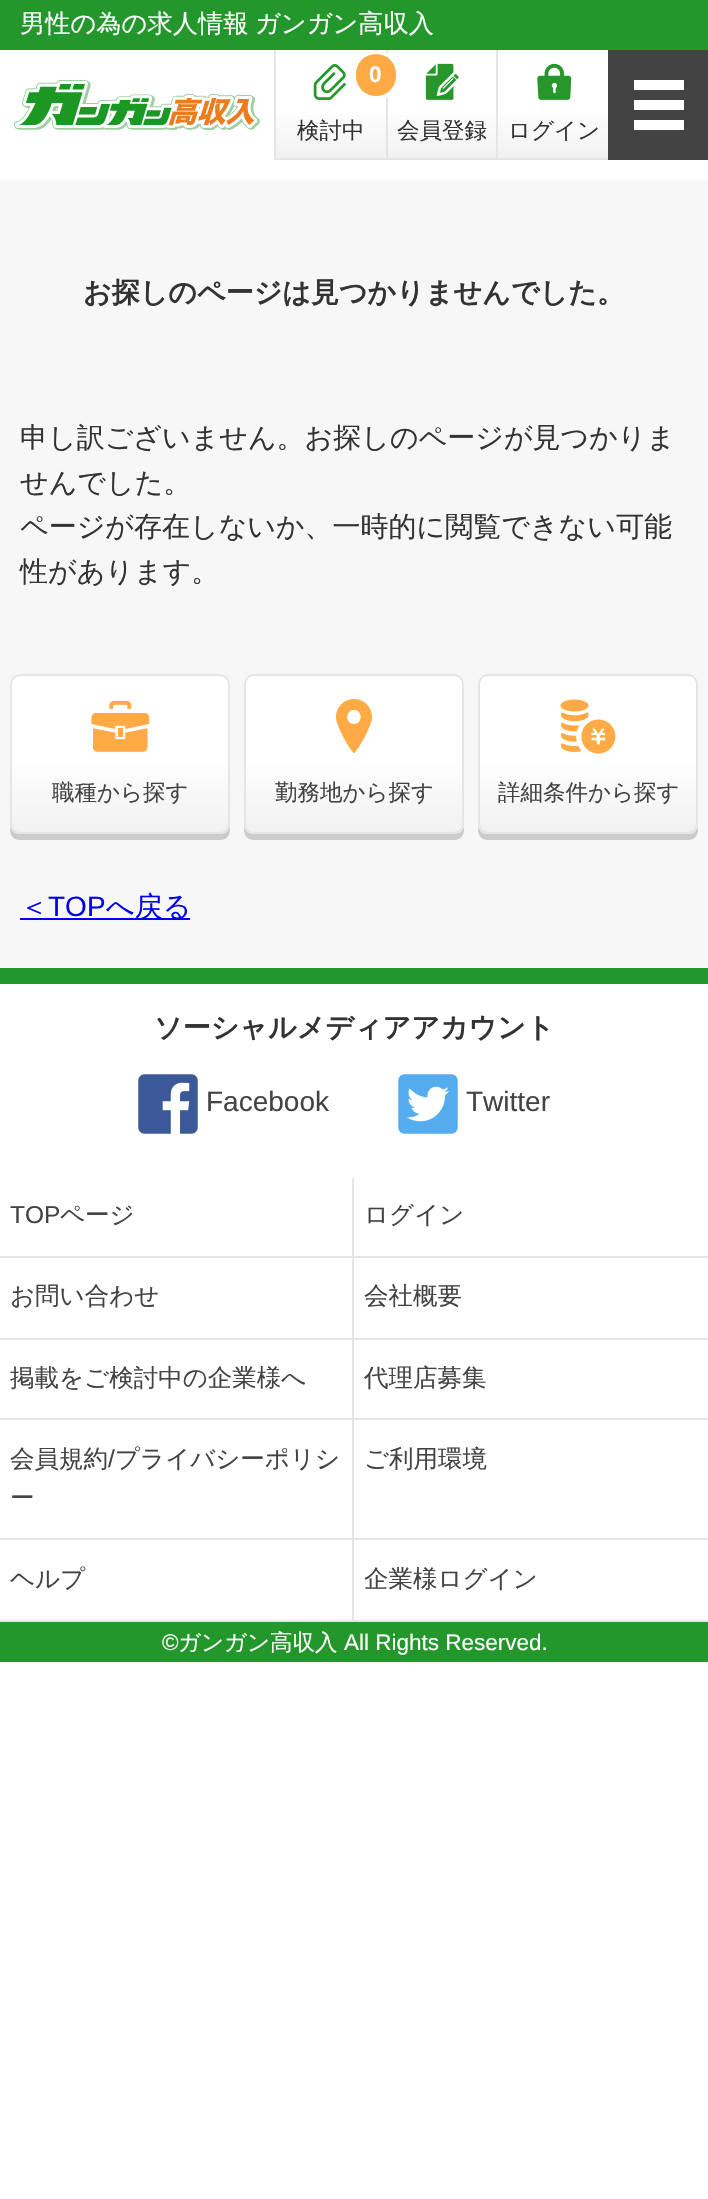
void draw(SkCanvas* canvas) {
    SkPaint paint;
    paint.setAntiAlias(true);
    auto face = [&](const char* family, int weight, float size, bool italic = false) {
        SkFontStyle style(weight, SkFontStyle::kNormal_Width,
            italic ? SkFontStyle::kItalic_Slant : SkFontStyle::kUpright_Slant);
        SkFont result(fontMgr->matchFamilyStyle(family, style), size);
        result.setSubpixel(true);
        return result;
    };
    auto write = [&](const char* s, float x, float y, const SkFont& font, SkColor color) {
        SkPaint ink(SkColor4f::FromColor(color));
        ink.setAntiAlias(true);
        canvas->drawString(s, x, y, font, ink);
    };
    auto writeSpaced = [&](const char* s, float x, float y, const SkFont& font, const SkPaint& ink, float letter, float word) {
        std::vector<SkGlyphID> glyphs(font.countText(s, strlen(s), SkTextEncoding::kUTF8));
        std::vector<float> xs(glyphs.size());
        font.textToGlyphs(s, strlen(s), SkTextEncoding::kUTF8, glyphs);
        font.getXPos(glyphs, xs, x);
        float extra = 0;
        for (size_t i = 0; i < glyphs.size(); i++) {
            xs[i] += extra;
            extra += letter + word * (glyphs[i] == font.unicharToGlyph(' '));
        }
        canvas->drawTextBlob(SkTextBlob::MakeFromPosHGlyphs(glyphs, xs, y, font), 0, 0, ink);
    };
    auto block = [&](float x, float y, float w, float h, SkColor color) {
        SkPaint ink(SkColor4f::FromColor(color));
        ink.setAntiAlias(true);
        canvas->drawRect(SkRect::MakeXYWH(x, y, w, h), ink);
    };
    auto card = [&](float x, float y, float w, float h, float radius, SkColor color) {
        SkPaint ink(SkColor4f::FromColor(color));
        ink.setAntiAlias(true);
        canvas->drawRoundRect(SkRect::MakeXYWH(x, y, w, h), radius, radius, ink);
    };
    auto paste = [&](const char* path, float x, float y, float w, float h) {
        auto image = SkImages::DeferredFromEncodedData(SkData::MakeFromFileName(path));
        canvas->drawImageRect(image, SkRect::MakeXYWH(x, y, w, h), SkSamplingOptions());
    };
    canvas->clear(SK_ColorWHITE);
    block(0, 0, 708, 50, SkColorSetRGB(36, 151, 44));
    auto kFont1 = face("WenQuanYi Zen Hei", 500, 25.25f);
    paint.setColor(SK_ColorWHITE);
    writeSpaced("男性の為の求人情報 ガンガン高収入", 20, 32, kFont1, paint, 0, -1);
    paste("pic1.png", 14, 80, 246, 50);
    block(274, 158, 334, 2, SkColorSetRGB(229, 229, 229));
    block(274, 50, 2, 110, SkColorSetRGB(229, 229, 229));
    {
        const SkColor colors[] = {SK_ColorWHITE, SK_ColorWHITE, SkColorSetRGB(241, 241, 241)};
        const float stops[] = {0, 0.51f, 1};
        const SkPoint ends[] = {{331, 50}, {331, 158}};
        paint.setShader(SkGradientShader::MakeLinear(ends, colors, stops, 3, SkTileMode::kClamp));
        paint.setAlpha(255);
    }
    canvas->drawRect(SkRect::MakeXYWH(276, 115, 110, 43), paint);
    paste("pic2.png", 313, 64, 34, 36);
    block(386, 50, 2, 110, SkColorSetRGB(229, 229, 229));
    paint.setStyle(SkPaint::kStroke_Style);
    paint.setStrokeWidth(4);
    paint.setShader(nullptr);
    paint.setColor(SkColorSetARGB(230, 255, 255, 255));
    canvas->drawRoundRect(SkRect::MakeXYWH(354, 52, 44, 46), 22, 22, paint);
    card(356, 54, 40, 42, 20, SkColorSetRGB(255, 170, 69));
    auto kFont2 = face("Liberation Sans", 700, 22.5f);
    write("0", 369, 82, kFont2, SK_ColorWHITE);
    auto kFont3 = face("WenQuanYi Zen Hei", 500, 22.5f);
    write("検討中", 297, 138, kFont3, SkColorSetRGB(51, 51, 51));
    paint.setStyle(SkPaint::kFill_Style);
    {
        const SkColor colors[] = {SK_ColorWHITE, SK_ColorWHITE, SkColorSetRGB(241, 241, 241)};
        const float stops[] = {0, 0.51f, 1};
        const SkPoint ends[] = {{442, 50}, {442, 158}};
        paint.setShader(SkGradientShader::MakeLinear(ends, colors, stops, 3, SkTileMode::kClamp));
        paint.setAlpha(255);
    }
    canvas->drawRect(SkRect::MakeXYWH(388, 115, 108, 43), paint);
    paste("pic3.png", 425, 63, 34, 37);
    write("会員登録", 397, 138, kFont3, SkColorSetRGB(51, 51, 51));
    block(496, 50, 2, 110, SkColorSetRGB(229, 229, 229));
    {
        const SkColor colors[] = {SK_ColorWHITE, SK_ColorWHITE, SkColorSetRGB(241, 241, 241)};
        const float stops[] = {0, 0.51f, 1};
        const SkPoint ends[] = {{553, 50}, {553, 158}};
        paint.setShader(SkGradientShader::MakeLinear(ends, colors, stops, 3, SkTileMode::kClamp));
        paint.setAlpha(255);
    }
    canvas->drawRect(SkRect::MakeXYWH(498, 115, 110, 43), paint);
    paste("pic4.png", 537, 63, 35, 37);
    write("ログイン", 508, 138, kFont3, SkColorSetRGB(51, 51, 51));
    block(608, 50, 100, 110, SkColorSetRGB(67, 67, 67));
    block(634, 120, 50, 10, SK_ColorWHITE);
    block(634, 100, 50, 10, SK_ColorWHITE);
    block(634, 80, 50, 10, SK_ColorWHITE);
    block(0, 180, 708, 788, SkColorSetRGB(247, 247, 247));
    auto kFont4 = face("WenQuanYi Zen Hei", 700, 28);
    write("お探しのページは見つかりませんでした。", 83, 302, kFont4, SkColorSetRGB(51, 51, 51));
    auto kFont5 = face("WenQuanYi Zen Hei", 500, 28);
    write("申し訳ございません。お探しのページが見つかりま", 20, 447, kFont5, SkColorSetRGB(51, 51, 51));
    write("せんでした。", 20, 492, kFont5, SkColorSetRGB(51, 51, 51));
    write("ページが存在しないか、一時的に閲覧できない可能", 20, 536, kFont5, SkColorSetRGB(51, 51, 51));
    write("性があります。", 20, 581, kFont5, SkColorSetRGB(51, 51, 51));
    paint.setShader(nullptr);
    paint.setColor(SkColorSetRGB(204, 204, 204));
    canvas->drawPath(SkPathBuilder().moveTo(10, 824).lineTo(10, 830).cubicTo(10, 836, 14, 840, 20, 840).lineTo(220, 840).cubicTo(226, 840, 230, 836, 230, 830).lineTo(230, 824).cubicTo(230, 830, 226, 834, 220, 834).lineTo(20, 834).cubicTo(14, 834, 10, 830, 10, 824).close().detach(), paint);
    canvas->save();
    canvas->clipPath(SkPathBuilder().moveTo(20, 674).lineTo(220, 674).cubicTo(225.5f, 674, 230, 678.5f, 230, 684).lineTo(230, 824).cubicTo(230, 829.5f, 225.5f, 834, 220, 834).lineTo(20, 834).cubicTo(14.5f, 834, 10, 829.5f, 10, 824).lineTo(10, 684).cubicTo(10, 678.5f, 14.5f, 674, 20, 674).close().detach(), true);
    {
        const SkColor colors[] = {SK_ColorWHITE, SK_ColorWHITE, SkColorSetRGB(241, 241, 241)};
        const float stops[] = {0, 0.51f, 1};
        const SkPoint ends[] = {{120, 676}, {120, 832}};
        paint.setShader(SkGradientShader::MakeLinear(ends, colors, stops, 3, SkTileMode::kClamp));
        paint.setAlpha(255);
    }
    canvas->drawRect(SkRect::MakeXYWH(10, 676, 220, 156), paint);
    canvas->restore();
    paint.setStyle(SkPaint::kStroke_Style);
    paint.setStrokeWidth(2);
    paint.setShader(nullptr);
    paint.setColor(SkColorSetRGB(229, 229, 229));
    canvas->drawRoundRect(SkRect::MakeXYWH(11, 675, 218, 158), 9, 9, paint);
    paste("pic5.png", 91, 700, 59, 52);
    write("職種から探す", 52, 800, kFont3, SkColorSetRGB(67, 67, 67));
    paint.setStyle(SkPaint::kFill_Style);
    paint.setColor(SkColorSetRGB(204, 204, 204));
    canvas->drawPath(SkPathBuilder().moveTo(244, 824).lineTo(244, 830).cubicTo(244, 836, 248, 840, 254, 840).lineTo(454, 840).cubicTo(460, 840, 464, 836, 464, 830).lineTo(464, 824).cubicTo(464, 830, 460, 834, 454, 834).lineTo(254, 834).cubicTo(248, 834, 244, 830, 244, 824).close().detach(), paint);
    canvas->save();
    canvas->clipPath(SkPathBuilder().moveTo(254, 674).lineTo(454, 674).cubicTo(459.5f, 674, 464, 678.5f, 464, 684).lineTo(464, 824).cubicTo(464, 829.5f, 459.5f, 834, 454, 834).lineTo(254, 834).cubicTo(248.5f, 834, 244, 829.5f, 244, 824).lineTo(244, 684).cubicTo(244, 678.5f, 248.5f, 674, 254, 674).close().detach(), true);
    {
        const SkColor colors[] = {SK_ColorWHITE, SK_ColorWHITE, SkColorSetRGB(241, 241, 241)};
        const float stops[] = {0, 0.51f, 1};
        const SkPoint ends[] = {{354, 676}, {354, 832}};
        paint.setShader(SkGradientShader::MakeLinear(ends, colors, stops, 3, SkTileMode::kClamp));
        paint.setAlpha(255);
    }
    canvas->drawRect(SkRect::MakeXYWH(244, 676, 220, 156), paint);
    canvas->restore();
    paint.setStyle(SkPaint::kStroke_Style);
    paint.setShader(nullptr);
    paint.setColor(SkColorSetRGB(229, 229, 229));
    canvas->drawRoundRect(SkRect::MakeXYWH(245, 675, 218, 158), 9, 9, paint);
    paint.setStyle(SkPaint::kFill_Style);
    paint.setColor(SkColorSetRGB(255, 170, 69));
    canvas->drawPath(SkPathBuilder().moveTo(354, 699).cubicTo(344, 699, 336, 707, 336, 717).cubicTo(336, 727, 352, 753, 354, 753).cubicTo(356, 753, 372, 727, 372, 717).cubicTo(372, 707, 364, 699, 354, 699).close().moveTo(354, 724).cubicTo(345, 724, 345, 710, 354, 710).cubicTo(363, 710, 363, 724, 354, 724).close().detach(), paint);
    write("勤務地から探す", 275, 800, kFont3, SkColorSetRGB(67, 67, 67));
    paint.setColor(SkColorSetRGB(204, 204, 204));
    canvas->drawPath(SkPathBuilder().moveTo(478, 824).lineTo(478, 830).cubicTo(478, 836, 482, 840, 488, 840).lineTo(688, 840).cubicTo(694, 840, 698, 836, 698, 830).lineTo(698, 824).cubicTo(698, 830, 694, 834, 688, 834).lineTo(488, 834).cubicTo(482, 834, 478, 830, 478, 824).close().detach(), paint);
    canvas->save();
    canvas->clipPath(SkPathBuilder().moveTo(488, 674).lineTo(688, 674).cubicTo(693.5f, 674, 698, 678.5f, 698, 684).lineTo(698, 824).cubicTo(698, 829.5f, 693.5f, 834, 688, 834).lineTo(488, 834).cubicTo(482.5f, 834, 478, 829.5f, 478, 824).lineTo(478, 684).cubicTo(478, 678.5f, 482.5f, 674, 488, 674).close().detach(), true);
    {
        const SkColor colors[] = {SK_ColorWHITE, SK_ColorWHITE, SkColorSetRGB(241, 241, 241)};
        const float stops[] = {0, 0.51f, 1};
        const SkPoint ends[] = {{588, 676}, {588, 832}};
        paint.setShader(SkGradientShader::MakeLinear(ends, colors, stops, 3, SkTileMode::kClamp));
        paint.setAlpha(255);
    }
    canvas->drawRect(SkRect::MakeXYWH(478, 676, 220, 156), paint);
    canvas->restore();
    paint.setStyle(SkPaint::kStroke_Style);
    paint.setShader(nullptr);
    paint.setColor(SkColorSetRGB(229, 229, 229));
    canvas->drawRoundRect(SkRect::MakeXYWH(479, 675, 218, 158), 9, 9, paint);
    paste("pic6.png", 560, 699, 56, 55);
    write("詳細条件から探す", 498, 800, kFont3, SkColorSetRGB(67, 67, 67));
    write("＜", 20, 916, kFont5, SkColorSetRGB(0, 0, 238));
    block(20, 918, 170, 2, SkColorSetRGB(0, 0, 238));
    auto kFont6 = face("Liberation Sans", 400, 28);
    write("TOP", 48, 916, kFont6, SkColorSetRGB(0, 0, 238));
    write("へ戻る", 106, 916, kFont5, SkColorSetRGB(0, 0, 238));
    block(0, 968, 708, 16, SkColorSetRGB(36, 151, 44));
    write("ソーシャルメディアアカウント", 154, 1037, kFont4, SkColorSetRGB(51, 51, 51));
    paste("pic7.png", 138, 1074, 60, 60);
    write("Facebook", 206, 1111, kFont6, SkColorSetRGB(67, 67, 67));
    paste("pic8.png", 398, 1074, 60, 60);
    write("Twitter", 466, 1111, kFont6, SkColorSetRGB(67, 67, 67));
    block(0, 1256, 708, 2, SkColorSetRGB(229, 229, 229));
    block(352, 1178, 2, 78, SkColorSetRGB(229, 229, 229));
    auto kFont7 = face("Liberation Sans", 400, 24.5f);
    write("TOP", 10, 1223, kFont7, SkColorSetRGB(67, 67, 67));
    auto kFont8 = face("WenQuanYi Zen Hei", 500, 24.5f);
    write("ページ", 60, 1223, kFont8, SkColorSetRGB(67, 67, 67));
    write("ログイン", 364, 1223, kFont8, SkColorSetRGB(67, 67, 67));
    block(0, 1338, 708, 2, SkColorSetRGB(229, 229, 229));
    block(352, 1258, 2, 80, SkColorSetRGB(229, 229, 229));
    write("お問い合わせ", 10, 1304, kFont8, SkColorSetRGB(67, 67, 67));
    write("会社概要", 364, 1304, kFont8, SkColorSetRGB(67, 67, 67));
    block(0, 1418, 708, 2, SkColorSetRGB(229, 229, 229));
    block(352, 1340, 2, 78, SkColorSetRGB(229, 229, 229));
    write("掲載をご検討中の企業様へ", 10, 1386, kFont8, SkColorSetRGB(67, 67, 67));
    write("代理店募集", 364, 1386, kFont8, SkColorSetRGB(67, 67, 67));
    block(0, 1538, 708, 2, SkColorSetRGB(229, 229, 229));
    block(352, 1420, 2, 118, SkColorSetRGB(229, 229, 229));
    write("会員規約", 10, 1467, kFont8, SkColorSetRGB(67, 67, 67));
    write("/", 108, 1467, kFont7, SkColorSetRGB(67, 67, 67));
    write("プライバシーポリシ", 115, 1467, kFont8, SkColorSetRGB(67, 67, 67));
    write("ー", 10, 1506, kFont8, SkColorSetRGB(67, 67, 67));
    write("ご利用環境", 364, 1467, kFont8, SkColorSetRGB(67, 67, 67));
    block(0, 1620, 708, 2, SkColorSetRGB(229, 229, 229));
    block(352, 1540, 2, 80, SkColorSetRGB(229, 229, 229));
    write("ヘルプ", 10, 1587, kFont8, SkColorSetRGB(67, 67, 67));
    write("企業様ログイン", 364, 1587, kFont8, SkColorSetRGB(67, 67, 67));
    block(0, 1622, 708, 40, SkColorSetRGB(36, 151, 44));
    auto kFont9 = face("Liberation Sans", 400, 22.5f);
    write("©", 162, 1650, kFont9, SK_ColorWHITE);
    write("ガンガン高収入", 178, 1650, kFont3, SK_ColorWHITE);
    write("All Rights Reserved.", 344, 1650, kFont9, SK_ColorWHITE);
}
